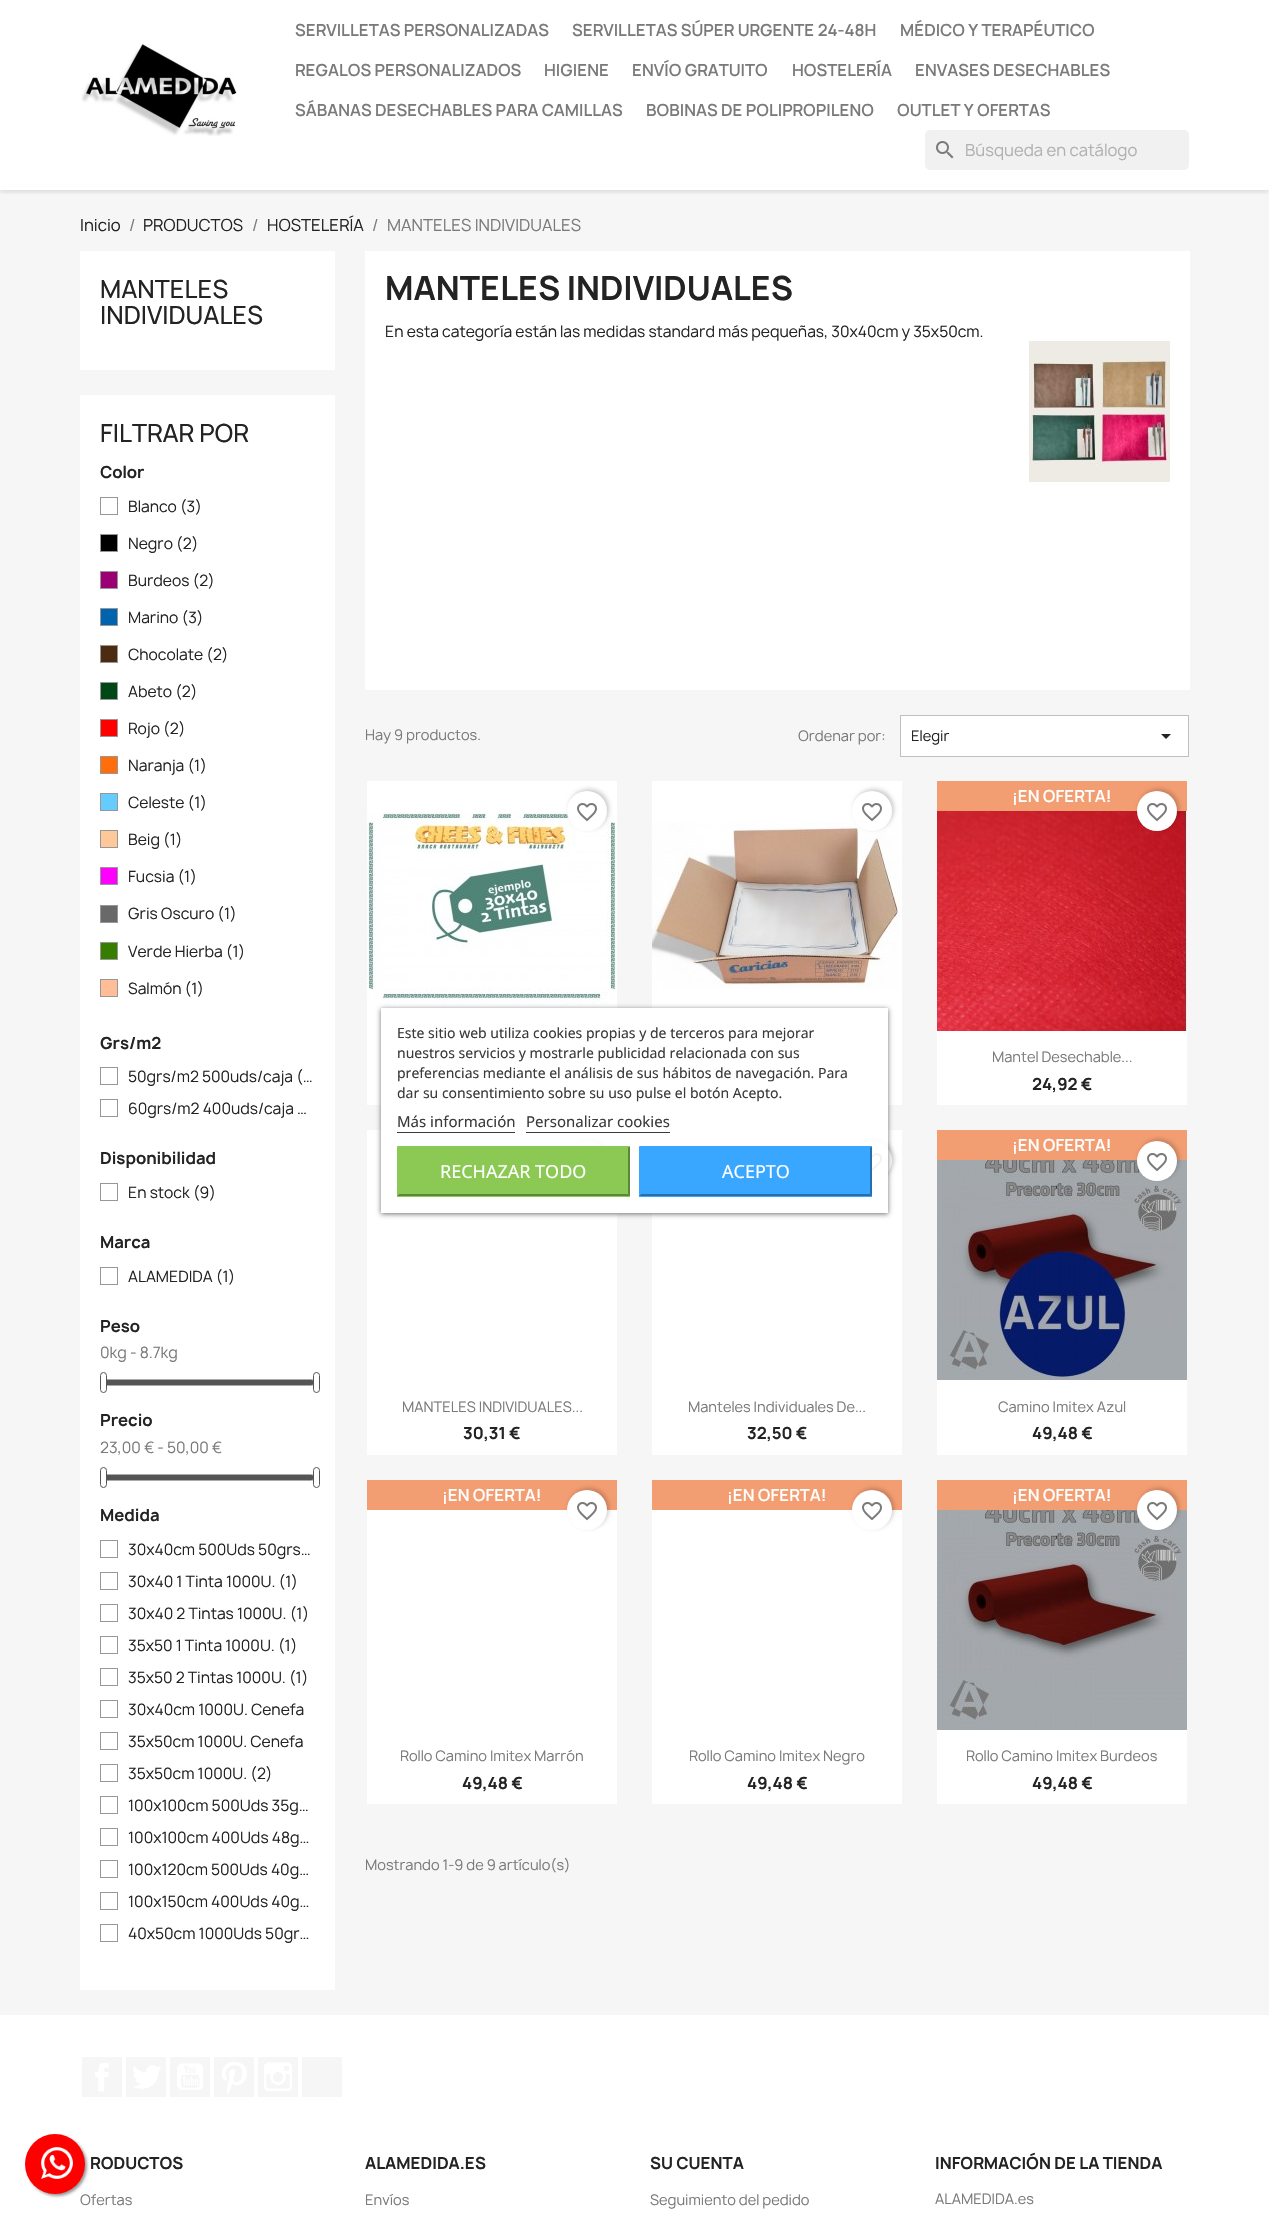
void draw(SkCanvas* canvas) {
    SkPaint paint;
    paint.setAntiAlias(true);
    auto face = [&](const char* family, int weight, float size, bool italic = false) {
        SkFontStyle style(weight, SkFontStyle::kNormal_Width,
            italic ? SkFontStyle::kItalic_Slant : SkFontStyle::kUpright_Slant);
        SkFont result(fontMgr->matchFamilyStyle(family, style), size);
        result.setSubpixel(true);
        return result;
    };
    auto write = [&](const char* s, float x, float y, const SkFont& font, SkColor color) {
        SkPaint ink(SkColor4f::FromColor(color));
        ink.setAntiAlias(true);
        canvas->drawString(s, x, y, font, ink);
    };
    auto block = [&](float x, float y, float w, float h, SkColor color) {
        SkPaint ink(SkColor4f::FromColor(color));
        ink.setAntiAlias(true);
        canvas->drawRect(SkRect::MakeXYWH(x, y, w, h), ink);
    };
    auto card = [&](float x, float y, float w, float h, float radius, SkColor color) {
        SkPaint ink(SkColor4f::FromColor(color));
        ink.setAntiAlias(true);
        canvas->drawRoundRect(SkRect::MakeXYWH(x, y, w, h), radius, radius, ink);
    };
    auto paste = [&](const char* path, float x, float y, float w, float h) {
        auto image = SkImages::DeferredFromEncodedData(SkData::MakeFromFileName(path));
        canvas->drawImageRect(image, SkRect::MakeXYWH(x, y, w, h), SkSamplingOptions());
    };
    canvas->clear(SK_ColorWHITE);
    paint.setColor(SkColorSetRGB(153, 153, 153));
    paint.setMaskFilter(SkMaskFilter::MakeBlur(kNormal_SkBlurStyle, 1.5f));
    canvas->drawRoundRect(SkRect::MakeXYWH(27, 2136, 60, 60), 30, 30, paint);
    paint.setMaskFilter(nullptr);
    paint.setColor(SkColorSetRGB(255, 0, 0));
    canvas->drawCircle(55, 2164, 30, paint);
    paste("pic1.png", 41, 2147, 32, 32);
    block(0, 190, 1269, 1825, SkColorSetRGB(246, 246, 246));
    canvas->save();
    canvas->clipRect(SkRect::MakeXYWH(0, 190, 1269, 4));
    paint.setColor(SkColorSetARGB(28, 0, 0, 0));
    paint.setMaskFilter(SkMaskFilter::MakeBlur(kNormal_SkBlurStyle, 2.5f));
    canvas->drawRect(SkRect::MakeXYWH(0, -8, 1269, 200), paint);
    paint.setMaskFilter(nullptr);
    canvas->restore();
    paste("pic2.png", 81, 44, 156, 92);
    auto kFont1 = face("Manrope", 600, 16);
    write("SERVILLETAS PERSONALIZADAS", 295, 36, kFont1, SkColorSetRGB(122, 122, 122));
    write("SERVILLETAS SÚPER URGENTE 24-48H", 572, 36, kFont1, SkColorSetRGB(122, 122, 122));
    write("MÉDICO Y TERAPÉUTICO", 900, 36, kFont1, SkColorSetRGB(122, 122, 122));
    write("REGALOS PERSONALIZADOS", 295, 76, kFont1, SkColorSetRGB(122, 122, 122));
    write("HIGIENE", 544, 76, kFont1, SkColorSetRGB(122, 122, 122));
    write("ENVÍO GRATUITO", 632, 76, kFont1, SkColorSetRGB(122, 122, 122));
    write("HOSTELERÍA", 792, 76, kFont1, SkColorSetRGB(122, 122, 122));
    write("ENVASES DESECHABLES", 915, 76, kFont1, SkColorSetRGB(122, 122, 122));
    write("SÁBANAS DESECHABLES PARA CAMILLAS", 295, 116, kFont1, SkColorSetRGB(122, 122, 122));
    write("BOBINAS DE POLIPROPILENO", 646, 116, kFont1, SkColorSetRGB(122, 122, 122));
    write("OUTLET Y OFERTAS", 897, 116, kFont1, SkColorSetRGB(122, 122, 122));
    card(925, 130, 264, 40, 5, SkColorSetRGB(241, 241, 241));
    paste("pic3.png", 936, 141, 18, 18);
    auto kFont2 = face("Manrope", 400, 16);
    write("Búsqueda en catálogo", 965, 156, kFont2, SkColorSetRGB(177, 177, 177));
    write("Inicio", 80, 231, kFont2, SkColorSetRGB(35, 35, 35));
    write("/", 129, 231, kFont2, SkColorSetRGB(122, 122, 122));
    write("PRODUCTOS", 143, 231, kFont2, SkColorSetRGB(35, 35, 35));
    write("/", 252, 231, kFont2, SkColorSetRGB(122, 122, 122));
    write("HOSTELERÍA", 267, 231, kFont2, SkColorSetRGB(35, 35, 35));
    write("/", 372, 231, kFont2, SkColorSetRGB(122, 122, 122));
    write("MANTELES INDIVIDUALES", 387, 231, kFont2, SkColorSetRGB(122, 122, 122));
    block(80, 251, 255, 119, SK_ColorWHITE);
    auto kFont3 = face("Manrope", 500, 24);
    write("MANTELES", 100, 298, kFont3, SkColorSetRGB(35, 35, 35));
    write("INDIVIDUALES", 100, 324, kFont3, SkColorSetRGB(35, 35, 35));
    block(80, 395, 255, 1595, SK_ColorWHITE);
    write("FILTRAR POR", 100, 442, kFont3, SkColorSetRGB(35, 35, 35));
    auto kFont4 = face("Manrope", 700, 16);
    write("Color", 100, 478, kFont4, SkColorSetRGB(35, 35, 35));
    paint.setStyle(SkPaint::kStroke_Style);
    paint.setStrokeWidth(1);
    paint.setColor(SkColorSetRGB(151, 151, 151));
    canvas->drawRect(SkRect::MakeXYWH(100.5f, 497.5f, 17, 17), paint);
    auto kFont5 = face("Manrope", 400, 15);
    write("Blanco (3)", 128, 512, kFont5, SkColorSetRGB(35, 35, 35));
    paint.setStyle(SkPaint::kFill_Style);
    paint.setColor(SK_ColorBLACK);
    canvas->drawRect(SkRect::MakeXYWH(100.5f, 534.5f, 17, 17), paint);
    paint.setStyle(SkPaint::kStroke_Style);
    paint.setColor(SkColorSetRGB(151, 151, 151));
    canvas->drawRect(SkRect::MakeXYWH(100.5f, 534.5f, 17, 17), paint);
    write("Negro (2)", 128, 549, kFont5, SkColorSetRGB(35, 35, 35));
    paint.setStyle(SkPaint::kFill_Style);
    paint.setColor(SkColorSetRGB(155, 0, 117));
    canvas->drawRect(SkRect::MakeXYWH(100.5f, 571.5f, 17, 17), paint);
    paint.setStyle(SkPaint::kStroke_Style);
    paint.setColor(SkColorSetRGB(151, 151, 151));
    canvas->drawRect(SkRect::MakeXYWH(100.5f, 571.5f, 17, 17), paint);
    write("Burdeos (2)", 128, 586, kFont5, SkColorSetRGB(35, 35, 35));
    paint.setStyle(SkPaint::kFill_Style);
    paint.setColor(SkColorSetRGB(0, 99, 175));
    canvas->drawRect(SkRect::MakeXYWH(100.5f, 608.5f, 17, 17), paint);
    paint.setStyle(SkPaint::kStroke_Style);
    paint.setColor(SkColorSetRGB(151, 151, 151));
    canvas->drawRect(SkRect::MakeXYWH(100.5f, 608.5f, 17, 17), paint);
    write("Marino (3)", 128, 623, kFont5, SkColorSetRGB(35, 35, 35));
    paint.setStyle(SkPaint::kFill_Style);
    paint.setColor(SkColorSetRGB(76, 43, 17));
    canvas->drawRect(SkRect::MakeXYWH(100.5f, 645.5f, 17, 17), paint);
    paint.setStyle(SkPaint::kStroke_Style);
    paint.setColor(SkColorSetRGB(151, 151, 151));
    canvas->drawRect(SkRect::MakeXYWH(100.5f, 645.5f, 17, 17), paint);
    write("Chocolate (2)", 128, 660, kFont5, SkColorSetRGB(35, 35, 35));
    paint.setStyle(SkPaint::kFill_Style);
    paint.setColor(SkColorSetRGB(0, 71, 24));
    canvas->drawRect(SkRect::MakeXYWH(100.5f, 682.5f, 17, 17), paint);
    paint.setStyle(SkPaint::kStroke_Style);
    paint.setColor(SkColorSetRGB(151, 151, 151));
    canvas->drawRect(SkRect::MakeXYWH(100.5f, 682.5f, 17, 17), paint);
    write("Abeto (2)", 128, 697, kFont5, SkColorSetRGB(35, 35, 35));
    paint.setStyle(SkPaint::kFill_Style);
    paint.setColor(SkColorSetRGB(255, 0, 0));
    canvas->drawRect(SkRect::MakeXYWH(100.5f, 719.5f, 17, 17), paint);
    paint.setStyle(SkPaint::kStroke_Style);
    paint.setColor(SkColorSetRGB(151, 151, 151));
    canvas->drawRect(SkRect::MakeXYWH(100.5f, 719.5f, 17, 17), paint);
    write("Rojo (2)", 128, 734, kFont5, SkColorSetRGB(35, 35, 35));
    paint.setStyle(SkPaint::kFill_Style);
    paint.setColor(SkColorSetRGB(255, 109, 12));
    canvas->drawRect(SkRect::MakeXYWH(100.5f, 756.5f, 17, 17), paint);
    paint.setStyle(SkPaint::kStroke_Style);
    paint.setColor(SkColorSetRGB(151, 151, 151));
    canvas->drawRect(SkRect::MakeXYWH(100.5f, 756.5f, 17, 17), paint);
    write("Naranja (1)", 128, 771, kFont5, SkColorSetRGB(35, 35, 35));
    paint.setStyle(SkPaint::kFill_Style);
    paint.setColor(SkColorSetRGB(102, 204, 255));
    canvas->drawRect(SkRect::MakeXYWH(100.5f, 793.5f, 17, 17), paint);
    paint.setStyle(SkPaint::kStroke_Style);
    paint.setColor(SkColorSetRGB(151, 151, 151));
    canvas->drawRect(SkRect::MakeXYWH(100.5f, 793.5f, 17, 17), paint);
    write("Celeste (1)", 128, 808, kFont5, SkColorSetRGB(35, 35, 35));
    paint.setStyle(SkPaint::kFill_Style);
    paint.setColor(SkColorSetRGB(255, 200, 153));
    canvas->drawRect(SkRect::MakeXYWH(100.5f, 830.5f, 17, 17), paint);
    paint.setStyle(SkPaint::kStroke_Style);
    paint.setColor(SkColorSetRGB(151, 151, 151));
    canvas->drawRect(SkRect::MakeXYWH(100.5f, 830.5f, 17, 17), paint);
    write("Beig (1)", 128, 845, kFont5, SkColorSetRGB(35, 35, 35));
    paint.setStyle(SkPaint::kFill_Style);
    paint.setColor(SkColorSetRGB(255, 0, 255));
    canvas->drawRect(SkRect::MakeXYWH(100.5f, 867.5f, 17, 17), paint);
    paint.setStyle(SkPaint::kStroke_Style);
    paint.setColor(SkColorSetRGB(151, 151, 151));
    canvas->drawRect(SkRect::MakeXYWH(100.5f, 867.5f, 17, 17), paint);
    write("Fucsia (1)", 128, 882, kFont5, SkColorSetRGB(35, 35, 35));
    paint.setStyle(SkPaint::kFill_Style);
    paint.setColor(SkColorSetRGB(105, 105, 105));
    canvas->drawRect(SkRect::MakeXYWH(100.5f, 905.5f, 17, 17), paint);
    paint.setStyle(SkPaint::kStroke_Style);
    paint.setColor(SkColorSetRGB(151, 151, 151));
    canvas->drawRect(SkRect::MakeXYWH(100.5f, 905.5f, 17, 17), paint);
    write("Gris Oscuro (1)", 128, 919, kFont5, SkColorSetRGB(35, 35, 35));
    paint.setStyle(SkPaint::kFill_Style);
    paint.setColor(SkColorSetRGB(53, 126, 0));
    canvas->drawRect(SkRect::MakeXYWH(100.5f, 942.5f, 17, 17), paint);
    paint.setStyle(SkPaint::kStroke_Style);
    paint.setColor(SkColorSetRGB(151, 151, 151));
    canvas->drawRect(SkRect::MakeXYWH(100.5f, 942.5f, 17, 17), paint);
    write("Verde Hierba (1)", 128, 957, kFont5, SkColorSetRGB(35, 35, 35));
    paint.setStyle(SkPaint::kFill_Style);
    paint.setColor(SkColorSetRGB(255, 190, 152));
    canvas->drawRect(SkRect::MakeXYWH(100.5f, 979.5f, 17, 17), paint);
    paint.setStyle(SkPaint::kStroke_Style);
    paint.setColor(SkColorSetRGB(151, 151, 151));
    canvas->drawRect(SkRect::MakeXYWH(100.5f, 979.5f, 17, 17), paint);
    write("Salmón (1)", 128, 994, kFont5, SkColorSetRGB(35, 35, 35));
    write("Grs/m2", 100, 1049, kFont4, SkColorSetRGB(35, 35, 35));
    canvas->drawRect(SkRect::MakeXYWH(100.5f, 1067.5f, 17, 17), paint);
    write("50grs/m2 500uds/caja (…", 128, 1082, kFont5, SkColorSetRGB(35, 35, 35));
    canvas->drawRect(SkRect::MakeXYWH(100.5f, 1099.5f, 17, 17), paint);
    write("60grs/m2 400uds/caja …", 128, 1114, kFont5, SkColorSetRGB(35, 35, 35));
    write("Disponibilidad", 100, 1164, kFont4, SkColorSetRGB(35, 35, 35));
    canvas->drawRect(SkRect::MakeXYWH(100.5f, 1183.5f, 17, 17), paint);
    write("En stock (9)", 128, 1198, kFont5, SkColorSetRGB(35, 35, 35));
    write("Marca", 100, 1248, kFont4, SkColorSetRGB(35, 35, 35));
    canvas->drawRect(SkRect::MakeXYWH(100.5f, 1267.5f, 17, 17), paint);
    write("ALAMEDIDA (1)", 128, 1282, kFont5, SkColorSetRGB(35, 35, 35));
    write("Peso", 100, 1332, kFont4, SkColorSetRGB(35, 35, 35));
    write("0kg - 8.7kg", 100, 1358, kFont5, SkColorSetRGB(122, 122, 122));
    paint.setColor(SkColorSetRGB(170, 170, 170));
    canvas->drawRoundRect(SkRect::MakeXYWH(100.5f, 1379.5f, 214, 6), 3, 3, paint);
    card(101, 1380, 213, 5, 2.5f, SkColorSetRGB(85, 85, 85));
    paint.setStyle(SkPaint::kFill_Style);
    paint.setColor(SK_ColorWHITE);
    canvas->drawRoundRect(SkRect::MakeXYWH(100.5f, 1372.5f, 6, 20), 3, 3, paint);
    paint.setStyle(SkPaint::kStroke_Style);
    paint.setColor(SkColorSetRGB(85, 85, 85));
    canvas->drawRoundRect(SkRect::MakeXYWH(100.5f, 1372.5f, 6, 20), 3, 3, paint);
    paint.setStyle(SkPaint::kFill_Style);
    paint.setColor(SK_ColorWHITE);
    canvas->drawRoundRect(SkRect::MakeXYWH(313.5f, 1372.5f, 6, 20), 3, 3, paint);
    paint.setStyle(SkPaint::kStroke_Style);
    paint.setColor(SkColorSetRGB(85, 85, 85));
    canvas->drawRoundRect(SkRect::MakeXYWH(313.5f, 1372.5f, 6, 20), 3, 3, paint);
    write("Precio", 100, 1426, kFont4, SkColorSetRGB(35, 35, 35));
    write("23,00 € - 50,00 €", 100, 1453, kFont5, SkColorSetRGB(122, 122, 122));
    paint.setColor(SkColorSetRGB(170, 170, 170));
    canvas->drawRoundRect(SkRect::MakeXYWH(100.5f, 1474.5f, 214, 6), 3, 3, paint);
    card(101, 1475, 213, 5, 2.5f, SkColorSetRGB(85, 85, 85));
    paint.setStyle(SkPaint::kFill_Style);
    paint.setColor(SK_ColorWHITE);
    canvas->drawRoundRect(SkRect::MakeXYWH(100.5f, 1467.5f, 6, 20), 3, 3, paint);
    paint.setStyle(SkPaint::kStroke_Style);
    paint.setColor(SkColorSetRGB(85, 85, 85));
    canvas->drawRoundRect(SkRect::MakeXYWH(100.5f, 1467.5f, 6, 20), 3, 3, paint);
    paint.setStyle(SkPaint::kFill_Style);
    paint.setColor(SK_ColorWHITE);
    canvas->drawRoundRect(SkRect::MakeXYWH(313.5f, 1467.5f, 6, 20), 3, 3, paint);
    paint.setStyle(SkPaint::kStroke_Style);
    paint.setColor(SkColorSetRGB(85, 85, 85));
    canvas->drawRoundRect(SkRect::MakeXYWH(313.5f, 1467.5f, 6, 20), 3, 3, paint);
    write("Medida", 100, 1521, kFont4, SkColorSetRGB(35, 35, 35));
    paint.setColor(SkColorSetRGB(151, 151, 151));
    canvas->drawRect(SkRect::MakeXYWH(100.5f, 1540.5f, 17, 17), paint);
    write("30x40cm 500Uds 50grs…", 128, 1555, kFont5, SkColorSetRGB(35, 35, 35));
    canvas->drawRect(SkRect::MakeXYWH(100.5f, 1572.5f, 17, 17), paint);
    write("30x40 1 Tinta 1000U. (1)", 128, 1587, kFont5, SkColorSetRGB(35, 35, 35));
    canvas->drawRect(SkRect::MakeXYWH(100.5f, 1604.5f, 17, 17), paint);
    write("30x40 2 Tintas 1000U. (1)", 128, 1619, kFont5, SkColorSetRGB(35, 35, 35));
    canvas->drawRect(SkRect::MakeXYWH(100.5f, 1636.5f, 17, 17), paint);
    write("35x50 1 Tinta 1000U. (1)", 128, 1651, kFont5, SkColorSetRGB(35, 35, 35));
    canvas->drawRect(SkRect::MakeXYWH(100.5f, 1668.5f, 17, 17), paint);
    write("35x50 2 Tintas 1000U. (1)", 128, 1683, kFont5, SkColorSetRGB(35, 35, 35));
    canvas->drawRect(SkRect::MakeXYWH(100.5f, 1700.5f, 17, 17), paint);
    write("30x40cm 1000U. Cenefa", 128, 1715, kFont5, SkColorSetRGB(35, 35, 35));
    canvas->drawRect(SkRect::MakeXYWH(100.5f, 1732.5f, 17, 17), paint);
    write("35x50cm 1000U. Cenefa", 128, 1747, kFont5, SkColorSetRGB(35, 35, 35));
    canvas->drawRect(SkRect::MakeXYWH(100.5f, 1764.5f, 17, 17), paint);
    write("35x50cm 1000U. (2)", 128, 1779, kFont5, SkColorSetRGB(35, 35, 35));
    canvas->drawRect(SkRect::MakeXYWH(100.5f, 1796.5f, 17, 17), paint);
    write("100x100cm 500Uds 35g…", 128, 1811, kFont5, SkColorSetRGB(35, 35, 35));
    canvas->drawRect(SkRect::MakeXYWH(100.5f, 1828.5f, 17, 17), paint);
    write("100x100cm 400Uds 48g…", 128, 1843, kFont5, SkColorSetRGB(35, 35, 35));
    canvas->drawRect(SkRect::MakeXYWH(100.5f, 1860.5f, 17, 17), paint);
    write("100x120cm 500Uds 40g…", 128, 1875, kFont5, SkColorSetRGB(35, 35, 35));
    canvas->drawRect(SkRect::MakeXYWH(100.5f, 1892.5f, 17, 17), paint);
    write("100x150cm 400Uds 40g…", 128, 1907, kFont5, SkColorSetRGB(35, 35, 35));
    canvas->drawRect(SkRect::MakeXYWH(100.5f, 1924.5f, 17, 17), paint);
    write("40x50cm 1000Uds 50gr…", 128, 1939, kFont5, SkColorSetRGB(35, 35, 35));
    block(365, 251, 825, 439, SK_ColorWHITE);
    auto kFont6 = face("Manrope", 700, 32);
    write("MANTELES INDIVIDUALES", 385, 300, kFont6, SkColorSetRGB(35, 35, 35));
    write("En esta categoría están las medidas standard más pequeñas, 30x40cm y 35x50cm.", 385, 337, kFont5, SkColorSetRGB(35, 35, 35));
    paste("pic4.png", 1029, 341, 141, 141);
    auto kFont7 = face("Manrope", 400, 14);
    write("Hay 9 productos.", 365, 740, kFont7, SkColorSetRGB(122, 122, 122));
    write("Ordenar por:", 798, 741, kFont7, SkColorSetRGB(122, 122, 122));
    paint.setStyle(SkPaint::kFill_Style);
    paint.setColor(SK_ColorWHITE);
    canvas->drawRect(SkRect::MakeXYWH(900.5f, 715.5f, 288, 41), paint);
    paint.setStyle(SkPaint::kStroke_Style);
    paint.setColor(SkColorSetRGB(191, 191, 191));
    canvas->drawRect(SkRect::MakeXYWH(900.5f, 715.5f, 288, 41), paint);
    write("Elegir", 911, 741, kFont7, SkColorSetRGB(35, 35, 35));
    paint.setStyle(SkPaint::kFill_Style);
    paint.setColor(SkColorSetRGB(35, 35, 35));
    canvas->drawPath(SkPathBuilder().moveTo(1161, 734).lineTo(1171, 734).lineTo(1166, 739).close().detach(), paint);
    block(367, 781, 250, 324, SK_ColorWHITE);
    paste("pic6.png", 367, 812, 250, 193);
    paint.setColor(SkColorSetARGB(51, 0, 0, 0));
    paint.setMaskFilter(SkMaskFilter::MakeBlur(kNormal_SkBlurStyle, 2));
    canvas->drawRoundRect(SkRect::MakeXYWH(569, 789, 40, 40), 20, 20, paint);
    paint.setMaskFilter(nullptr);
    paint.setColor(SK_ColorWHITE);
    canvas->drawCircle(587, 811, 20, paint);
    paste("pic5.png", 577, 803, 20, 19);
    block(652, 781, 250, 324, SK_ColorWHITE);
    paste("pic7.png", 652, 822, 248, 167);
    paint.setColor(SkColorSetARGB(51, 0, 0, 0));
    paint.setMaskFilter(SkMaskFilter::MakeBlur(kNormal_SkBlurStyle, 2));
    canvas->drawRoundRect(SkRect::MakeXYWH(854, 789, 40, 40), 20, 20, paint);
    paint.setMaskFilter(nullptr);
    paint.setColor(SK_ColorWHITE);
    canvas->drawCircle(872, 811, 20, paint);
    paste("pic5.png", 862, 803, 20, 19);
    block(937, 1031, 250, 74, SK_ColorWHITE);
    block(937, 781, 250, 30, SkColorSetRGB(243, 157, 114));
    write("¡EN OFERTA!", 1012, 802, kFont1, SK_ColorWHITE);
    paste("pic8.png", 937, 811, 250, 220);
    paint.setColor(SkColorSetARGB(51, 0, 0, 0));
    paint.setMaskFilter(SkMaskFilter::MakeBlur(kNormal_SkBlurStyle, 2));
    canvas->drawRoundRect(SkRect::MakeXYWH(1139, 789, 40, 40), 20, 20, paint);
    paint.setMaskFilter(nullptr);
    paint.setColor(SK_ColorWHITE);
    canvas->drawCircle(1157, 811, 20, paint);
    paste("pic5.png", 1147, 803, 20, 19);
    write("Mantel Desechable...", 992, 1062, kFont7, SkColorSetRGB(122, 122, 122));
    write("24,92 €", 1032, 1090, kFont4, SkColorSetRGB(35, 35, 35));
    block(367, 1130, 250, 325, SK_ColorWHITE);
    paint.setColor(SkColorSetARGB(51, 0, 0, 0));
    paint.setMaskFilter(SkMaskFilter::MakeBlur(kNormal_SkBlurStyle, 2));
    canvas->drawRoundRect(SkRect::MakeXYWH(569, 1139, 40, 40), 20, 20, paint);
    paint.setMaskFilter(nullptr);
    paint.setColor(SK_ColorWHITE);
    canvas->drawCircle(587, 1161, 20, paint);
    write("MANTELES INDIVIDUALES...", 402, 1412, kFont7, SkColorSetRGB(122, 122, 122));
    write("30,31 €", 463, 1439, kFont4, SkColorSetRGB(35, 35, 35));
    block(652, 1130, 250, 325, SK_ColorWHITE);
    paint.setColor(SkColorSetARGB(51, 0, 0, 0));
    paint.setMaskFilter(SkMaskFilter::MakeBlur(kNormal_SkBlurStyle, 2));
    canvas->drawRoundRect(SkRect::MakeXYWH(854, 1139, 40, 40), 20, 20, paint);
    paint.setMaskFilter(nullptr);
    paint.setColor(SK_ColorWHITE);
    canvas->drawCircle(872, 1161, 20, paint);
    paste("pic9.png", 872, 1153, 10, 19);
    write("Manteles Individuales De...", 688, 1412, kFont7, SkColorSetRGB(122, 122, 122));
    write("32,50 €", 747, 1439, kFont4, SkColorSetRGB(35, 35, 35));
    block(937, 1380, 250, 75, SK_ColorWHITE);
    block(937, 1130, 250, 30, SkColorSetRGB(243, 157, 114));
    write("¡EN OFERTA!", 1012, 1151, kFont1, SK_ColorWHITE);
    paste("pic10.png", 937, 1160, 250, 220);
    paint.setColor(SkColorSetARGB(51, 0, 0, 0));
    paint.setMaskFilter(SkMaskFilter::MakeBlur(kNormal_SkBlurStyle, 2));
    canvas->drawRoundRect(SkRect::MakeXYWH(1139, 1139, 40, 40), 20, 20, paint);
    paint.setMaskFilter(nullptr);
    paint.setColor(SK_ColorWHITE);
    canvas->drawCircle(1157, 1161, 20, paint);
    paste("pic5.png", 1147, 1153, 20, 19);
    write("Camino Imitex Azul", 998, 1412, kFont7, SkColorSetRGB(122, 122, 122));
    write("49,48 €", 1032, 1439, kFont4, SkColorSetRGB(35, 35, 35));
    block(367, 1510, 250, 294, SK_ColorWHITE);
    block(367, 1480, 250, 30, SkColorSetRGB(243, 157, 114));
    write("¡EN OFERTA!", 442, 1501, kFont1, SK_ColorWHITE);
    paint.setColor(SkColorSetARGB(51, 0, 0, 0));
    paint.setMaskFilter(SkMaskFilter::MakeBlur(kNormal_SkBlurStyle, 2));
    canvas->drawRoundRect(SkRect::MakeXYWH(569, 1488, 40, 40), 20, 20, paint);
    paint.setMaskFilter(nullptr);
    paint.setColor(SK_ColorWHITE);
    canvas->drawCircle(587, 1510, 20, paint);
    paste("pic5.png", 577, 1502, 20, 19);
    write("Rollo Camino Imitex Marrón", 400, 1761, kFont7, SkColorSetRGB(122, 122, 122));
    write("49,48 €", 462, 1789, kFont4, SkColorSetRGB(35, 35, 35));
    block(652, 1510, 250, 294, SK_ColorWHITE);
    block(652, 1480, 250, 30, SkColorSetRGB(243, 157, 114));
    write("¡EN OFERTA!", 727, 1501, kFont1, SK_ColorWHITE);
    paint.setColor(SkColorSetARGB(51, 0, 0, 0));
    paint.setMaskFilter(SkMaskFilter::MakeBlur(kNormal_SkBlurStyle, 2));
    canvas->drawRoundRect(SkRect::MakeXYWH(854, 1488, 40, 40), 20, 20, paint);
    paint.setMaskFilter(nullptr);
    paint.setColor(SK_ColorWHITE);
    canvas->drawCircle(872, 1510, 20, paint);
    paste("pic5.png", 862, 1502, 20, 19);
    write("Rollo Camino Imitex Negro", 689, 1761, kFont7, SkColorSetRGB(122, 122, 122));
    write("49,48 €", 747, 1789, kFont4, SkColorSetRGB(35, 35, 35));
    block(937, 1730, 250, 74, SK_ColorWHITE);
    block(937, 1480, 250, 30, SkColorSetRGB(243, 157, 114));
    write("¡EN OFERTA!", 1012, 1501, kFont1, SK_ColorWHITE);
    paste("pic11.png", 937, 1510, 250, 220);
    paint.setColor(SkColorSetARGB(51, 0, 0, 0));
    paint.setMaskFilter(SkMaskFilter::MakeBlur(kNormal_SkBlurStyle, 2));
    canvas->drawRoundRect(SkRect::MakeXYWH(1139, 1488, 40, 40), 20, 20, paint);
    paint.setMaskFilter(nullptr);
    paint.setColor(SK_ColorWHITE);
    canvas->drawCircle(1157, 1510, 20, paint);
    paste("pic5.png", 1147, 1502, 20, 19);
    write("Rollo Camino Imitex Burdeos", 966, 1761, kFont7, SkColorSetRGB(122, 122, 122));
    write("49,48 €", 1032, 1789, kFont4, SkColorSetRGB(35, 35, 35));
    write("Mostrando 1-9 de 9 artículo(s)", 365, 1870, kFont7, SkColorSetRGB(122, 122, 122));
    canvas->save();
    canvas->clipPath(SkPathBuilder(SkPathFillType::kEvenOdd).moveTo(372, 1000).lineTo(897, 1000).lineTo(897, 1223).lineTo(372, 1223).close().moveTo(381, 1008).lineTo(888, 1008).lineTo(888, 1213).lineTo(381, 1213).close().detach(), true);
    paint.setColor(SkColorSetRGB(112, 112, 112));
    paint.setMaskFilter(SkMaskFilter::MakeBlur(kNormal_SkBlurStyle, 2.5f));
    canvas->drawRect(SkRect::MakeXYWH(381, 1009, 507, 205), paint);
    paint.setMaskFilter(nullptr);
    canvas->restore();
    block(381, 1008, 507, 205, SkColorSetARGB(230, 255, 255, 255));
    auto kFont8 = face("Noto Sans", 400, 14);
    write("Este sitio web utiliza cookies propias y de terceros para mejorar", 397, 1038, kFont8, SkColorSetRGB(59, 59, 59));
    write("nuestros servicios y mostrarle publicidad relacionada con sus", 397, 1058, kFont8, SkColorSetRGB(59, 59, 59));
    write("preferencias mediante el análisis de sus hábitos de navegación. Para", 397, 1078, kFont8, SkColorSetRGB(59, 59, 59));
    write("dar su consentimiento sobre su uso pulse el botón Acepto.", 397, 1098, kFont8, SkColorSetRGB(59, 59, 59));
    auto kFont9 = face("Noto Sans", 400, 15);
    write("Más información", 397, 1127, kFont9, SkColorSetRGB(59, 59, 59));
    block(397, 1132, 118, 1, SkColorSetRGB(59, 59, 59));
    write("Personalizar cookies", 526, 1127, kFont9, SkColorSetRGB(59, 59, 59));
    block(526, 1132, 144, 1, SkColorSetRGB(59, 59, 59));
    block(397, 1147, 233, 50, SkColorSetRGB(139, 201, 84));
    paint.setColor(SkColorSetRGB(139, 201, 84));
    canvas->drawPath(SkPathBuilder().moveTo(397, 1146).lineTo(630, 1146).lineTo(628, 1148).lineTo(399, 1148).close().detach(), paint);
    paint.setColor(SkColorSetRGB(93, 134, 56));
    canvas->drawPath(SkPathBuilder().moveTo(630, 1146).lineTo(630, 1196).lineTo(628, 1194).lineTo(628, 1148).close().detach(), paint);
    canvas->drawPath(SkPathBuilder().moveTo(630, 1196).lineTo(397, 1196).lineTo(399, 1194).lineTo(628, 1194).close().detach(), paint);
    paint.setColor(SkColorSetRGB(139, 201, 84));
    canvas->drawPath(SkPathBuilder().moveTo(397, 1196).lineTo(397, 1146).lineTo(399, 1148).lineTo(399, 1194).close().detach(), paint);
    auto kFont10 = face("Noto Sans", 400, 18);
    write("RECHAZAR TODO", 440, 1178, kFont10, SK_ColorWHITE);
    block(639, 1147, 233, 50, SkColorSetRGB(57, 166, 255));
    paint.setColor(SkColorSetRGB(57, 166, 255));
    canvas->drawPath(SkPathBuilder().moveTo(639, 1146).lineTo(872, 1146).lineTo(870, 1148).lineTo(641, 1148).close().detach(), paint);
    paint.setColor(SkColorSetRGB(38, 111, 170));
    canvas->drawPath(SkPathBuilder().moveTo(872, 1146).lineTo(872, 1196).lineTo(870, 1194).lineTo(870, 1148).close().detach(), paint);
    canvas->drawPath(SkPathBuilder().moveTo(872, 1196).lineTo(639, 1196).lineTo(641, 1194).lineTo(870, 1194).close().detach(), paint);
    paint.setColor(SkColorSetRGB(57, 166, 255));
    canvas->drawPath(SkPathBuilder().moveTo(639, 1196).lineTo(639, 1146).lineTo(641, 1148).lineTo(641, 1194).close().detach(), paint);
    write("ACEPTO", 722, 1178, kFont10, SK_ColorWHITE);
    write("RODUCTOS", 90, 2169, kFont4, SkColorSetRGB(35, 35, 35));
    write("Ofertas", 80, 2205, kFont7, SkColorSetRGB(122, 122, 122));
    write("ALAMEDIDA.ES", 365, 2169, kFont4, SkColorSetRGB(35, 35, 35));
    write("Envíos", 365, 2205, kFont7, SkColorSetRGB(122, 122, 122));
    write("SU CUENTA", 650, 2169, kFont4, SkColorSetRGB(35, 35, 35));
    write("Seguimiento del pedido", 650, 2205, kFont7, SkColorSetRGB(122, 122, 122));
    write("INFORMACIÓN DE LA TIENDA", 935, 2169, kFont4, SkColorSetRGB(35, 35, 35));
    write("ALAMEDIDA.es", 935, 2204, kFont7, SkColorSetRGB(122, 122, 122));
    block(82, 2057, 40, 40, SkColorSetRGB(246, 246, 246));
    paste("pic12.png", 95, 2063, 14, 29);
    block(126, 2057, 40, 40, SkColorSetRGB(246, 246, 246));
    paste("pic13.png", 133, 2065, 28, 24);
    block(170, 2057, 40, 40, SkColorSetRGB(246, 246, 246));
    paste("pic14.png", 177, 2063, 26, 27);
    block(214, 2057, 40, 40, SkColorSetRGB(246, 246, 246));
    paste("pic15.png", 222, 2062, 25, 32);
    block(258, 2057, 40, 40, SkColorSetRGB(246, 246, 246));
    paste("pic16.png", 264, 2062, 28, 29);
    block(302, 2057, 40, 40, SkColorSetRGB(246, 246, 246));
}
